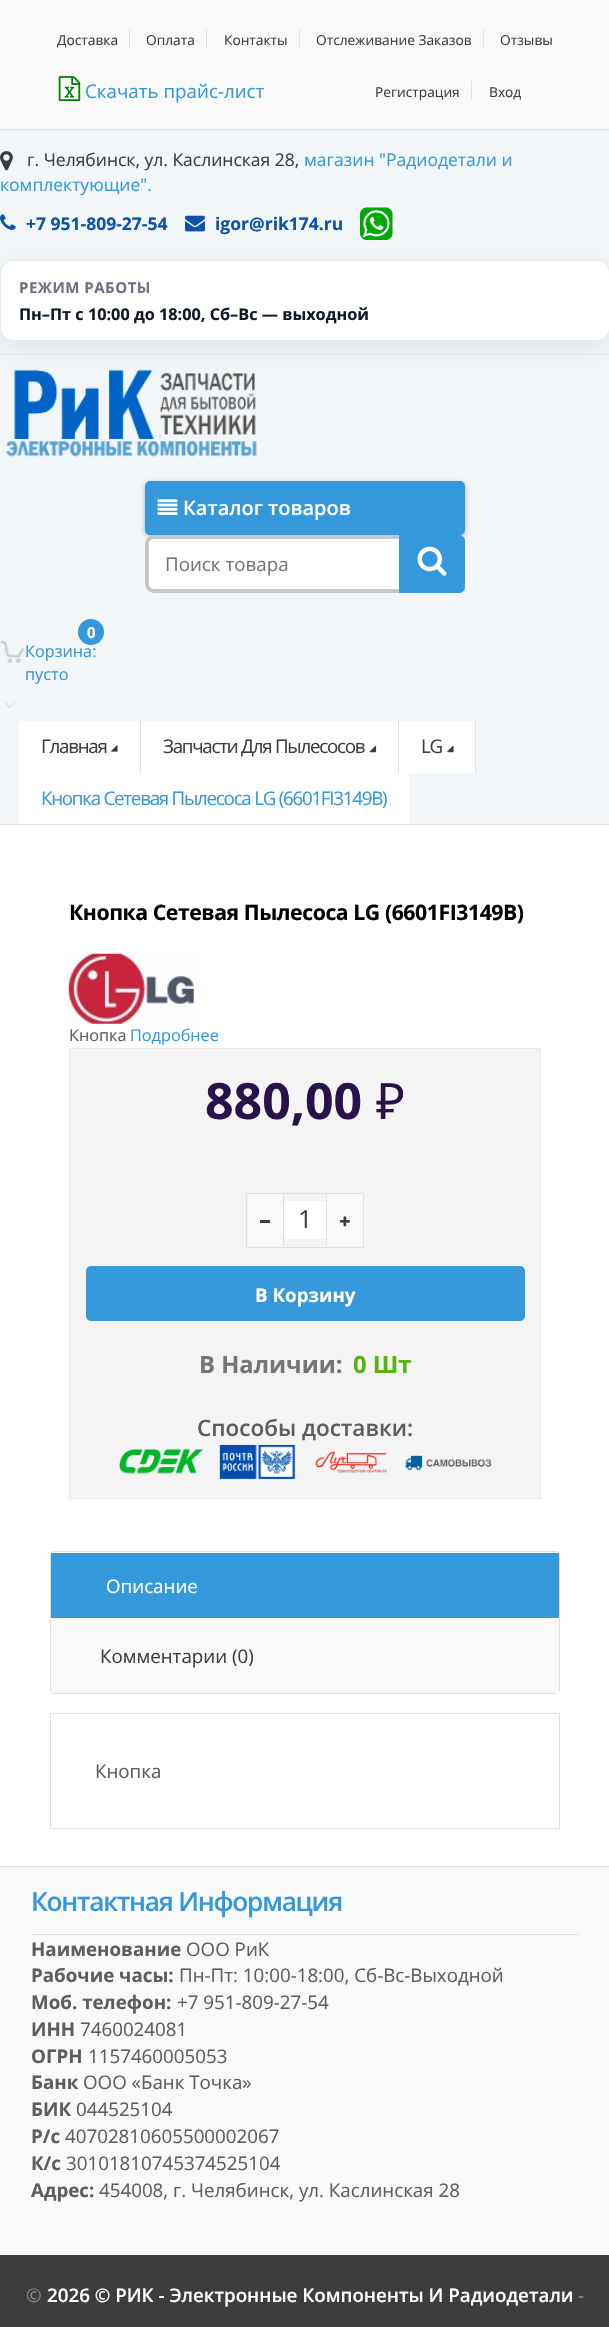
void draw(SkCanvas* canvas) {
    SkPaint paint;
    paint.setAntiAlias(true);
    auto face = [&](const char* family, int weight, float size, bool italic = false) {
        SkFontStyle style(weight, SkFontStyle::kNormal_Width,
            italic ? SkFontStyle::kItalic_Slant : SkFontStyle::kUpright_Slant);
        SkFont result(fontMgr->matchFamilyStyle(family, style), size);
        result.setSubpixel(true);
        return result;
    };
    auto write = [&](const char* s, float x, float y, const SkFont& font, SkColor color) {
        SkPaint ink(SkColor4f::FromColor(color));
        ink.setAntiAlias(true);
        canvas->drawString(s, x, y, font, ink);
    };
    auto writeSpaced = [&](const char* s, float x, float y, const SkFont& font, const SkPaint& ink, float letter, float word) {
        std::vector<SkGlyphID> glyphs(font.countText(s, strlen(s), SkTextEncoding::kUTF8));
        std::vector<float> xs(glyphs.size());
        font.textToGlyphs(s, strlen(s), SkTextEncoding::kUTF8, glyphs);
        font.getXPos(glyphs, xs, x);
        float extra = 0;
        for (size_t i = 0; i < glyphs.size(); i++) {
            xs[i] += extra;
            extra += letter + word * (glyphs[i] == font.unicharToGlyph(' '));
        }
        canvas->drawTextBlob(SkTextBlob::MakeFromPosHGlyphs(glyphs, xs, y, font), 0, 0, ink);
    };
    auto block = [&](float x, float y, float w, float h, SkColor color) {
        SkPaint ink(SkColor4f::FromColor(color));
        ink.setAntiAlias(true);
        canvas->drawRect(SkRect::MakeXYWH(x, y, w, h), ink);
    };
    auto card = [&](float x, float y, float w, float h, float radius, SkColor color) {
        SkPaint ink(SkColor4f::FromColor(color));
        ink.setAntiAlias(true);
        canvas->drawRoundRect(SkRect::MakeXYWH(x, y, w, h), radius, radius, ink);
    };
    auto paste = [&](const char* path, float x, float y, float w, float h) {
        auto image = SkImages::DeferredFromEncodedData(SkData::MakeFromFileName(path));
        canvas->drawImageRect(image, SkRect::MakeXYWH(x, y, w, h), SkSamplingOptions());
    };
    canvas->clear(SK_ColorWHITE);
    block(0, 0, 609, 129, SkColorSetRGB(249, 249, 249));
    block(0, 129, 609, 1, SkColorSetRGB(224, 224, 224));
    block(129, 30, 1, 19, SkColorSetRGB(224, 224, 224));
    auto kFont1 = face("Open Sans", 400, 13.75f);
    write("Доставка", 57, 45, kFont1, SkColorSetRGB(61, 61, 61));
    block(206, 30, 1, 19, SkColorSetRGB(224, 224, 224));
    write("Оплата", 146, 45, kFont1, SkColorSetRGB(61, 61, 61));
    block(299, 30, 1, 19, SkColorSetRGB(224, 224, 224));
    write("Контакты", 224, 45, kFont1, SkColorSetRGB(61, 61, 61));
    block(483, 30, 1, 19, SkColorSetRGB(224, 224, 224));
    write("Отслеживание Заказов", 316, 45, kFont1, SkColorSetRGB(61, 61, 61));
    write("Отзывы", 500, 45, kFont1, SkColorSetRGB(61, 61, 61));
    paste("pic1.png", 58, 76, 23, 26);
    auto kFont2 = face("Open Sans", 400, 18.75f);
    write("Скачать прайс-лист", 85, 98, kFont2, SkColorSetRGB(52, 152, 219));
    block(471, 81, 1, 19, SkColorSetRGB(224, 224, 224));
    write("Регистрация", 375, 97, kFont1, SkColorSetRGB(61, 61, 61));
    write("Вход", 489, 97, kFont1, SkColorSetRGB(61, 61, 61));
    block(0, 130, 609, 694, SkColorSetRGB(242, 246, 249));
    paste("pic2.png", 0, 151, 13, 20);
    auto kFont3 = face("Open Sans", 400, 17.5f);
    write("г. Челябинск, ул. Каслинская 28,", 27, 166, kFont3, SkColorSetRGB(61, 61, 61));
    write("магазин \"Радиодетали и", 304, 166, kFont3, SkColorSetRGB(52, 152, 219));
    write("комплектующие\".", 0, 191, kFont3, SkColorSetRGB(52, 152, 219));
    paste("pic3.png", 0, 214, 16, 16);
    auto kFont4 = face("Open Sans", 700, 17.5f);
    write("+7 951-809-27-54", 26, 230, kFont4, SkColorSetRGB(14, 83, 165));
    paste("pic4.png", 185, 215, 20, 17);
    write("igor@rik174.ru", 215, 230, kFont4, SkColorSetRGB(14, 83, 165));
    paste("pic5.png", 360, 207, 33, 33);
    block(0, 354, 609, 1, SkColorSetRGB(230, 235, 239));
    paint.setColor(SkColorSetARGB(15, 0, 0, 0));
    paint.setMaskFilter(SkMaskFilter::MakeBlur(kNormal_SkBlurStyle, 11));
    canvas->drawRoundRect(SkRect::MakeXYWH(0, 268, 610, 81), 13, 13, paint);
    paint.setMaskFilter(nullptr);
    paint.setColor(SK_ColorWHITE);
    canvas->drawRoundRect(SkRect::MakeXYWH(0.5f, 260.5f, 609, 80), 12.5f, 12.5f, paint);
    paint.setStyle(SkPaint::kStroke_Style);
    paint.setStrokeWidth(1);
    paint.setColor(SkColorSetRGB(230, 235, 239));
    canvas->drawRoundRect(SkRect::MakeXYWH(0.5f, 260.5f, 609, 80), 12.5f, 12.5f, paint);
    auto kFont5 = face("Open Sans", 700, 15);
    paint.setStyle(SkPaint::kFill_Style);
    paint.setColor(SkColorSetRGB(107, 114, 128));
    writeSpaced("РЕЖИМ РАБОТЫ", 19, 293, kFont5, paint, 0.5f, 0);
    auto kFont6 = face("Open Sans", 700, 16.25f);
    write("Пн–Пт с 10:00 до 18:00, Сб–Вс — выходной", 19, 320, kFont6, SkColorSetRGB(17, 24, 39));
    paste("pic6.png", 5, 369, 252, 88);
    paint.setColor(SkColorSetARGB(77, 0, 0, 0));
    paint.setMaskFilter(SkMaskFilter::MakeBlur(kNormal_SkBlurStyle, 2.5f));
    canvas->drawRoundRect(SkRect::MakeXYWH(145, 483, 320, 53), 5, 5, paint);
    paint.setMaskFilter(nullptr);
    card(145, 481, 320, 54, 5, SkColorSetRGB(52, 152, 219));
    paste("pic7.png", 157, 499, 21, 16);
    auto kFont7 = face("Open Sans", 600, 20);
    write("Каталог товаров", 183, 515, kFont7, SK_ColorWHITE);
    paint.setColor(SK_ColorWHITE);
    canvas->drawRoundRect(SkRect::MakeXYWH(147, 537, 316, 54), 7, 7, paint);
    paint.setStyle(SkPaint::kStroke_Style);
    paint.setStrokeWidth(4);
    paint.setColor(SkColorSetRGB(198, 198, 198));
    canvas->drawRoundRect(SkRect::MakeXYWH(147, 537, 316, 54), 7, 7, paint);
    paint.setStyle(SkPaint::kFill_Style);
    paint.setColor(SK_ColorWHITE);
    canvas->drawPath(SkPathBuilder().moveTo(155, 539).lineTo(353, 539).lineTo(353, 589).lineTo(155, 589).cubicTo(151.5f, 589, 149, 586.5f, 149, 583).lineTo(149, 545).cubicTo(149, 541.5f, 151.5f, 539, 155, 539).close().detach(), paint);
    write("Поиск товара", 165, 571, kFont2, SkColorSetRGB(117, 117, 117));
    paint.setColor(SkColorSetRGB(52, 152, 219));
    canvas->drawPath(SkPathBuilder().moveTo(399, 535).lineTo(459, 535).cubicTo(462.5f, 535, 465, 537.5f, 465, 541).lineTo(465, 587).cubicTo(465, 590.5f, 462.5f, 593, 459, 593).lineTo(399, 593).close().detach(), paint);
    paste("pic8.png", 417, 546, 30, 30);
    canvas->drawCircle(91, 632, 13, paint);
    write("0", 87, 638, kFont5, SK_ColorWHITE);
    paste("pic9.png", 0, 640, 24, 23);
    auto kFont8 = face("Open Sans", 400, 16.25f);
    write("Корзина:", 25, 657, kFont8, SkColorSetRGB(52, 152, 219));
    write("пусто", 25, 680, kFont8, SkColorSetRGB(52, 152, 219));
    paste("pic10.png", 4, 702, 11, 6);
    block(0, 824, 609, 1, SkColorSetRGB(224, 224, 224));
    block(19, 721, 121, 52, SK_ColorWHITE);
    block(140, 721, 1, 52, SkColorSetRGB(224, 224, 224));
    paint.setColor(SkColorSetRGB(61, 61, 61));
    writeSpaced("Главная", 41, 753, kFont2, paint, -1.25f, 0);
    paste("pic11.png", 111, 745, 7, 7);
    block(141, 721, 257, 52, SK_ColorWHITE);
    block(398, 721, 1, 52, SkColorSetRGB(224, 224, 224));
    writeSpaced("Запчасти Для Пылесосов", 163, 753, kFont2, paint, -1.25f, 0);
    paste("pic12.png", 369, 745, 8, 8);
    block(399, 721, 76, 52, SK_ColorWHITE);
    block(475, 721, 1, 52, SkColorSetRGB(224, 224, 224));
    writeSpaced("LG", 421, 753, kFont2, paint, -1.25f, 0);
    paste("pic13.png", 447, 745, 7, 8);
    block(19, 773, 390, 51, SK_ColorWHITE);
    paint.setColor(SkColorSetRGB(52, 152, 219));
    writeSpaced("Кнопка Сетевая Пылесоса LG (6601FI3149B)", 41, 805, kFont2, paint, -1.25f, 0);
    auto kFont9 = face("Open Sans", 700, 21.25f);
    paint.setColor(SK_ColorBLACK);
    writeSpaced("Кнопка Сетевая Пылесоса LG (6601FI3149B)", 69, 920, kFont9, paint, -0.45f, 0);
    paste("pic14.png", 68, 953, 126, 71);
    write("Кнопка", 69, 1041, kFont8, SkColorSetRGB(93, 93, 93));
    write("Подробнее", 130, 1041, kFont8, SkColorSetRGB(52, 152, 219));
    paint.setColor(SkColorSetRGB(244, 244, 244));
    canvas->drawRect(SkRect::MakeXYWH(69.5f, 1048.5f, 471, 450), paint);
    paint.setStyle(SkPaint::kStroke_Style);
    paint.setStrokeWidth(1);
    paint.setColor(SkColorSetRGB(232, 232, 232));
    canvas->drawRect(SkRect::MakeXYWH(69.5f, 1048.5f, 471, 450), paint);
    auto kFont10 = face("Open Sans", 700, 50);
    write("880,00", 205, 1119, kFont10, SkColorSetRGB(40, 18, 74));
    auto kFont11 = face("Noto Sans", 400, 50);
    write("₽", 376, 1119, kFont11, SkColorSetRGB(40, 18, 74));
    paint.setColor(SkColorSetRGB(224, 224, 224));
    canvas->drawRect(SkRect::MakeXYWH(246.5f, 1193.5f, 117, 54), paint);
    block(248, 1194, 35, 52, SkColorSetRGB(249, 249, 249));
    block(283, 1194, 1, 52, SkColorSetRGB(224, 224, 224));
    block(260, 1220, 10, 3, SkColorSetRGB(61, 61, 61));
    block(284, 1201, 42, 38, SK_ColorWHITE);
    auto kFont12 = face("Open Sans", 400, 25);
    write("1", 298, 1228, kFont12, SkColorSetRGB(61, 61, 61));
    block(327, 1194, 36, 52, SkColorSetRGB(249, 249, 249));
    block(326, 1194, 1, 52, SkColorSetRGB(224, 224, 224));
    paste("pic15.png", 340, 1216, 10, 11);
    card(86, 1266, 439, 55, 5, SkColorSetRGB(52, 152, 219));
    auto kFont13 = face("Open Sans", 700, 18.75f);
    write("В Корзину", 255, 1302, kFont13, SK_ColorWHITE);
    auto kFont14 = face("Open Sans", 700, 23.75f);
    write("В Наличии:", 199, 1373, kFont14, SkColorSetRGB(117, 117, 117));
    write("0 Шт", 353, 1373, kFont14, SkColorSetRGB(89, 178, 16));
    auto kFont15 = face("Open Sans", 600, 22.5f);
    write("Способы доставки:", 197, 1436, kFont15, SkColorSetRGB(93, 93, 93));
    paste("pic16.png", 119, 1449, 85, 25);
    paste("pic17.png", 219, 1444, 77, 36);
    paste("pic18.png", 315, 1451, 72, 23);
    paste("pic19.png", 404, 1455, 88, 16);
    canvas->drawRoundRect(SkRect::MakeXYWH(50.5f, 1551.5f, 509, 142), 3.5f, 3.5f, paint);
    block(51, 1553, 508, 65, SkColorSetRGB(52, 152, 219));
    write("Описание", 106, 1593, kFont2, SK_ColorWHITE);
    block(51, 1618, 508, 75, SkColorSetRGB(249, 249, 249));
    write("Комментарии (0)", 100, 1663, kFont2, SkColorSetRGB(61, 61, 61));
    canvas->drawRect(SkRect::MakeXYWH(50.5f, 1713.5f, 509, 115), paint);
    write("Кнопка", 95, 1778, kFont2, SkColorSetRGB(93, 93, 93));
    block(0, 1867, 609, 388, SkColorSetRGB(249, 249, 249));
    block(0, 1866, 609, 1, SkColorSetRGB(224, 224, 224));
    block(31, 1934, 548, 1, SkColorSetRGB(224, 224, 224));
    auto kFont16 = face("Open Sans", 600, 26.25f);
    paint.setStyle(SkPaint::kFill_Style);
    paint.setColor(SkColorSetRGB(52, 152, 219));
    writeSpaced("Контактная Информация", 31, 1911, kFont16, paint, -1.25f, 0);
    write("Наименование", 31, 1956, kFont13, SkColorSetRGB(93, 93, 93));
    write("ООО РиК", 186, 1956, kFont2, SkColorSetRGB(93, 93, 93));
    write("Рабочие часы:", 31, 1982, kFont13, SkColorSetRGB(93, 93, 93));
    write("Пн-Пт: 10:00-18:00, Сб-Вс-Выходной", 179, 1982, kFont2, SkColorSetRGB(93, 93, 93));
    write("Моб. телефон:", 31, 2009, kFont13, SkColorSetRGB(93, 93, 93));
    write("+7 951-809-27-54", 177, 2009, kFont2, SkColorSetRGB(93, 93, 93));
    write("ИНН", 31, 2036, kFont13, SkColorSetRGB(93, 93, 93));
    write("7460024081", 80, 2036, kFont2, SkColorSetRGB(93, 93, 93));
    write("ОГРН", 31, 2063, kFont13, SkColorSetRGB(93, 93, 93));
    write("1157460005053", 88, 2063, kFont2, SkColorSetRGB(93, 93, 93));
    write("Банк", 31, 2089, kFont13, SkColorSetRGB(93, 93, 93));
    write("ООО «Банк Точка»", 83, 2089, kFont2, SkColorSetRGB(93, 93, 93));
    write("БИК", 31, 2116, kFont13, SkColorSetRGB(93, 93, 93));
    write("044525104", 76, 2116, kFont2, SkColorSetRGB(93, 93, 93));
    write("Р/с", 31, 2143, kFont13, SkColorSetRGB(93, 93, 93));
    write("40702810605500002067", 65, 2143, kFont2, SkColorSetRGB(93, 93, 93));
    write("К/с", 31, 2170, kFont13, SkColorSetRGB(93, 93, 93));
    write("30101810745374525104", 66, 2170, kFont2, SkColorSetRGB(93, 93, 93));
    write("Адрес:", 31, 2197, kFont13, SkColorSetRGB(93, 93, 93));
    write("454008, г. Челябинск, ул. Каслинская 28", 99, 2197, kFont2, SkColorSetRGB(93, 93, 93));
    block(0, 2255, 609, 72, SkColorSetRGB(61, 61, 61));
    write("©", 26, 2302, kFont2, SkColorSetRGB(138, 138, 138));
    auto kFont17 = face("Open Sans", 600, 18.75f);
    write("2026 © РИК - Электронные Компоненты И Радиодетали", 47, 2302, kFont17, SK_ColorWHITE);
    write("-", 578, 2302, kFont2, SkColorSetRGB(138, 138, 138));
}
